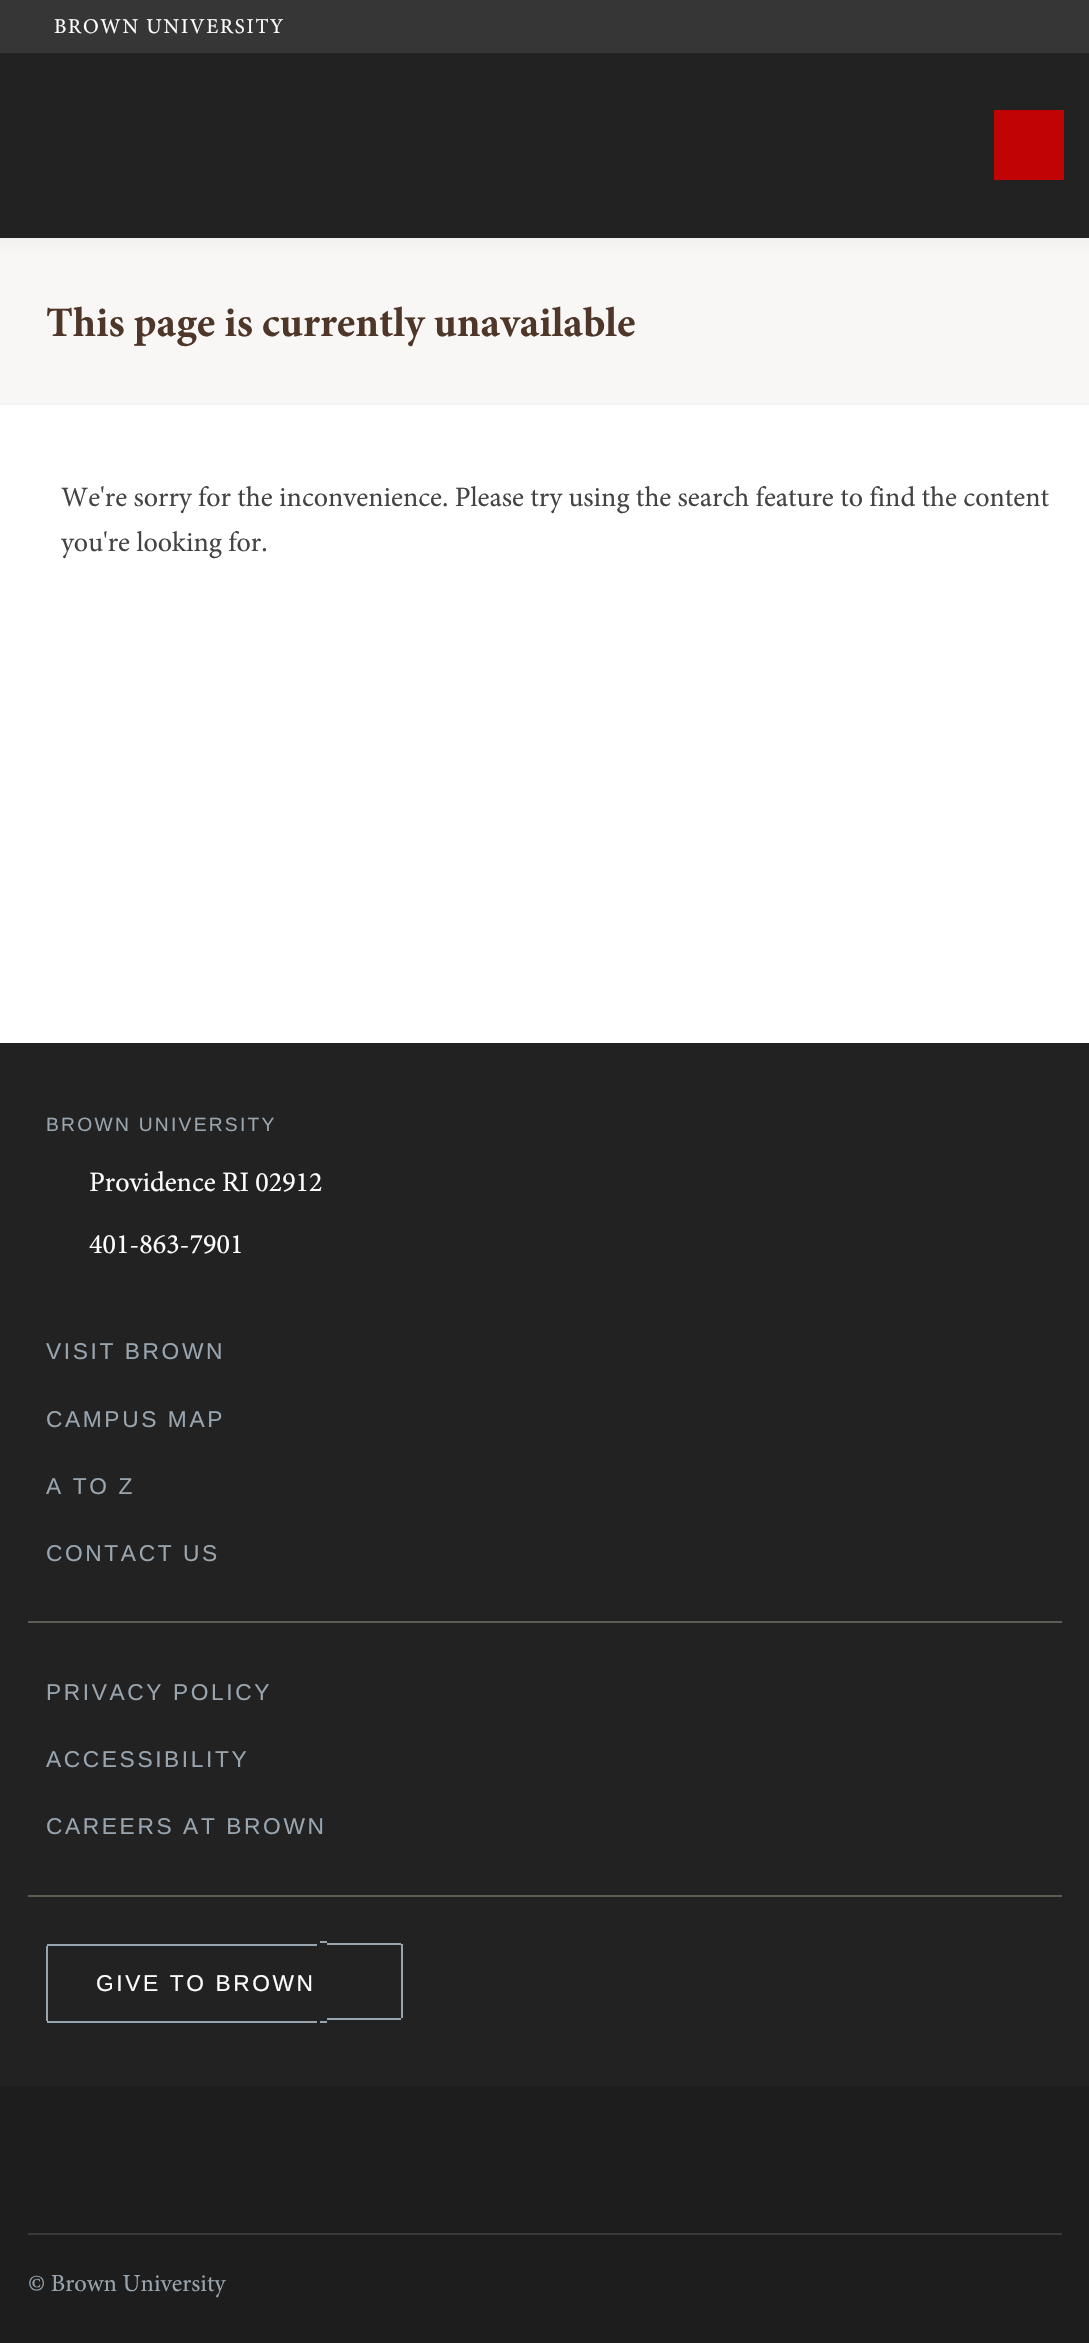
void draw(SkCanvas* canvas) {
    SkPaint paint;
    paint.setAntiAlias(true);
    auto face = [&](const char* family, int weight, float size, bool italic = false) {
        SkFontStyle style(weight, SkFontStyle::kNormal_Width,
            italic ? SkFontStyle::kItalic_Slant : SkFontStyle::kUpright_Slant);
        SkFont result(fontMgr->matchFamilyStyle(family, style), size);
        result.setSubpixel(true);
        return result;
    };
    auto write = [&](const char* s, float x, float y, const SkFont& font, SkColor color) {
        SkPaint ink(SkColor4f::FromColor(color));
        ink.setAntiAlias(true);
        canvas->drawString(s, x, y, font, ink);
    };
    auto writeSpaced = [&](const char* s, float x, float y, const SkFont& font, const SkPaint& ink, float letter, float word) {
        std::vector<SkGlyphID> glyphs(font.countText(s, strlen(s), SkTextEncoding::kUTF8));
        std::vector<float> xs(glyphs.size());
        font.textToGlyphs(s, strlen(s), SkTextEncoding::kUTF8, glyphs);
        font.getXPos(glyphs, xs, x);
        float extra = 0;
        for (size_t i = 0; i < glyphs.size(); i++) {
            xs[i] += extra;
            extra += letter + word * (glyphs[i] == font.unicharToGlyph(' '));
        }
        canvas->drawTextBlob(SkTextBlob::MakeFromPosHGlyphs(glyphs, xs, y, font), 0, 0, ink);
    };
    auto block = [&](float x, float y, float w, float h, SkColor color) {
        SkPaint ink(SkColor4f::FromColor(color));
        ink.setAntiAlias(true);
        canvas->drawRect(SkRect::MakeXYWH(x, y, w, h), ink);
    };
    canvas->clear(SK_ColorWHITE);
    block(0, 53, 1089, 185, SkColorSetRGB(34, 34, 34));
    block(0, 0, 1089, 53, SkColorSetRGB(54, 54, 54));
    auto kFont1 = face("Minion", 400, 21);
    paint.setColor(SK_ColorWHITE);
    writeSpaced("BROWN UNIVERSITY", 54, 33, kFont1, paint, 1.75f, 0);
    block(994, 110, 70, 70, SkColorSetRGB(192, 4, 4));
    {
        const SkColor colors[] = {SkColorSetRGB(242, 241, 239), SkColorSetRGB(248, 247, 245)};
        const float stops[] = {0, 1};
        const SkPoint ends[] = {{545, 238}, {545, 256}};
        paint.setShader(SkGradientShader::MakeLinear(ends, colors, stops, 2, SkTileMode::kClamp));
        paint.setAlpha(255);
    }
    canvas->drawRect(SkRect::MakeXYWH(0, 238, 1089, 18), paint);
    block(0, 256, 1089, 147, SkColorSetRGB(248, 247, 245));
    block(0, 403, 1089, 2, SkColorSetRGB(240, 242, 243));
    auto kFont2 = face("Minion", 700, 42);
    write("This page is currently unavailable", 46, 336, kFont2, SkColorSetRGB(78, 54, 41));
    auto kFont3 = face("Minion", 400, 28);
    write("We're sorry for the inconvenience. Please try using the search feature to find the content", 61, 506, kFont3, SkColorSetRGB(67, 67, 67));
    write("you're looking for.", 61, 551, kFont3, SkColorSetRGB(67, 67, 67));
    block(0, 1043, 1089, 1043, SkColorSetRGB(34, 34, 34));
    auto kFont4 = face("Liberation Sans", 400, 19.25f);
    paint.setShader(nullptr);
    paint.setColor(SkColorSetRGB(152, 164, 174));
    writeSpaced("BROWN UNIVERSITY", 46, 1131, kFont4, paint, 2.25f, 0);
    write("Providence RI 02912", 89, 1191, kFont3, SK_ColorWHITE);
    write("401-863-7901", 89, 1253, kFont3, SK_ColorWHITE);
    auto kFont5 = face("Liberation Sans", 400, 22.75f);
    writeSpaced("VISIT BROWN", 46, 1359, kFont5, paint, 2.6f, 0);
    writeSpaced("CAMPUS MAP", 46, 1427, kFont5, paint, 2.6f, 0);
    writeSpaced("A TO Z", 46, 1494, kFont5, paint, 2.6f, 0);
    writeSpaced("CONTACT US", 46, 1561, kFont5, paint, 2.6f, 0);
    block(28, 1621, 1034, 2, SkColorSetRGB(94, 91, 83));
    writeSpaced("PRIVACY POLICY", 46, 1700, kFont5, paint, 2.6f, 0);
    writeSpaced("ACCESSIBILITY", 46, 1767, kFont5, paint, 2.6f, 0);
    writeSpaced("CAREERS AT BROWN", 46, 1834, kFont5, paint, 2.6f, 0);
    block(28, 1895, 1034, 2, SkColorSetRGB(94, 91, 83));
    paint.setColor(SK_ColorWHITE);
    writeSpaced("GIVE TO BROWN", 96, 1991, kFont5, paint, 2.6f, 0);
    block(47, 1944, 270, 2, SkColorSetRGB(152, 164, 174));
    block(47, 2021, 270, 2, SkColorSetRGB(152, 164, 174));
    block(46, 1946, 2, 75, SkColorSetRGB(152, 164, 174));
    block(320, 1941, 7, 2, SkColorSetRGB(152, 164, 174));
    block(320, 2021, 7, 2, SkColorSetRGB(152, 164, 174));
    block(327, 1943, 74, 2, SkColorSetRGB(152, 164, 174));
    block(401, 1944, 2, 74, SkColorSetRGB(152, 164, 174));
    block(327, 2018, 74, 2, SkColorSetRGB(152, 164, 174));
    block(0, 2086, 1089, 257, SkColorSetRGB(29, 29, 29));
    block(28, 2233, 1034, 2, SkColorSetRGB(60, 58, 54));
    auto kFont6 = face("Minion", 400, 24.5f);
    write("© Brown University", 28, 2291, kFont6, SkColorSetRGB(152, 164, 174));
}
